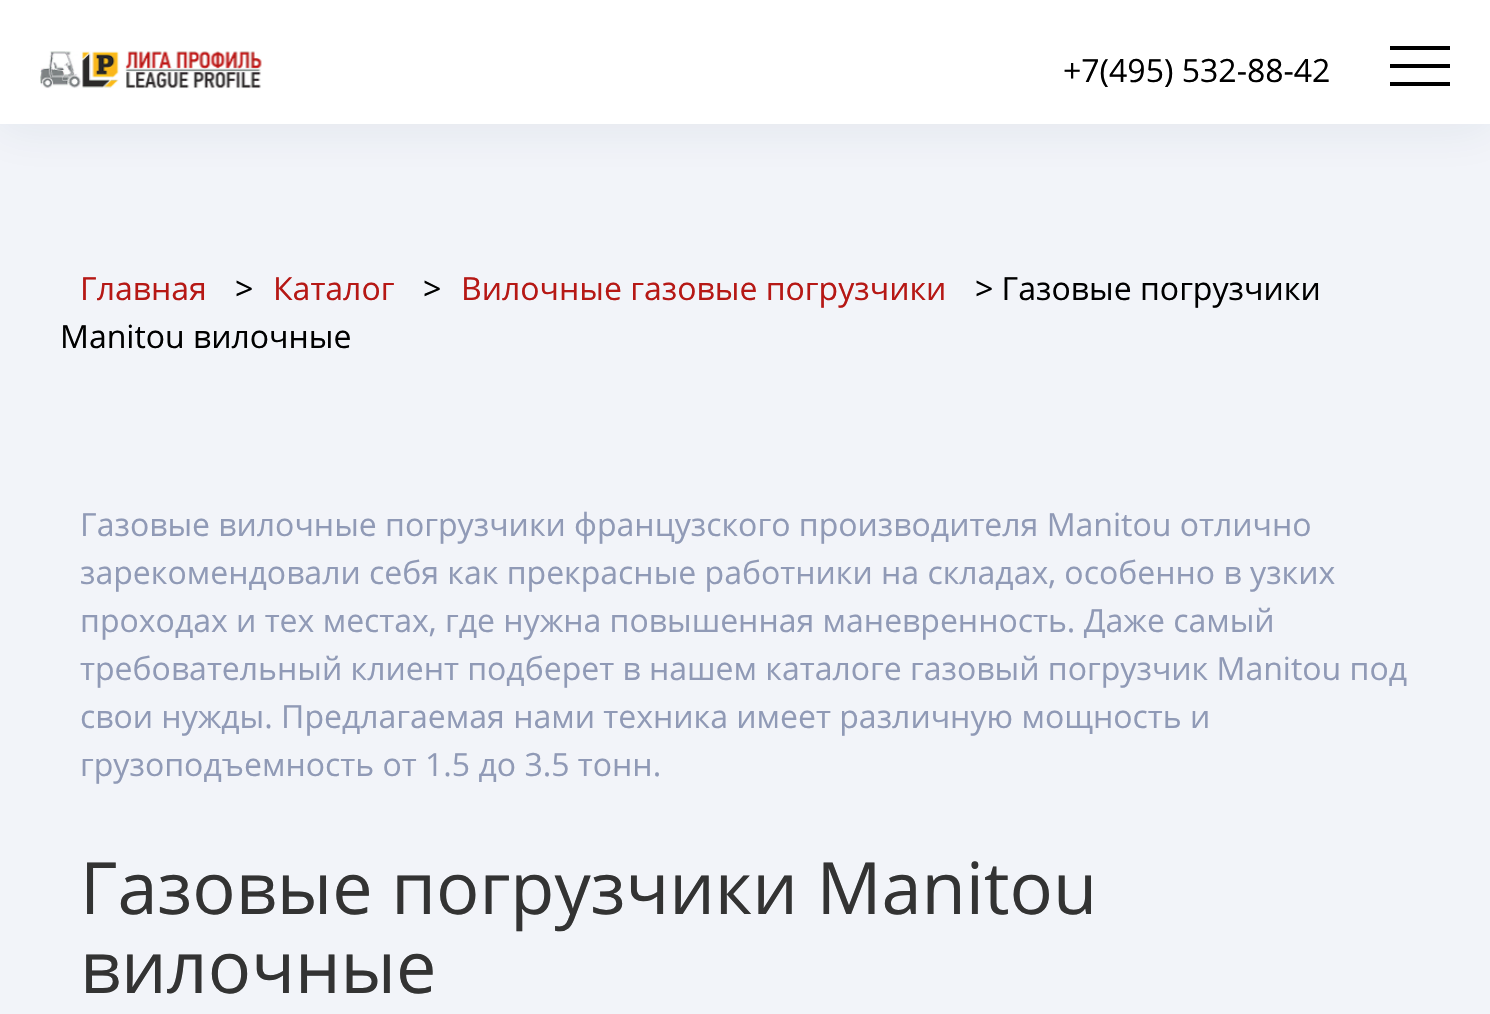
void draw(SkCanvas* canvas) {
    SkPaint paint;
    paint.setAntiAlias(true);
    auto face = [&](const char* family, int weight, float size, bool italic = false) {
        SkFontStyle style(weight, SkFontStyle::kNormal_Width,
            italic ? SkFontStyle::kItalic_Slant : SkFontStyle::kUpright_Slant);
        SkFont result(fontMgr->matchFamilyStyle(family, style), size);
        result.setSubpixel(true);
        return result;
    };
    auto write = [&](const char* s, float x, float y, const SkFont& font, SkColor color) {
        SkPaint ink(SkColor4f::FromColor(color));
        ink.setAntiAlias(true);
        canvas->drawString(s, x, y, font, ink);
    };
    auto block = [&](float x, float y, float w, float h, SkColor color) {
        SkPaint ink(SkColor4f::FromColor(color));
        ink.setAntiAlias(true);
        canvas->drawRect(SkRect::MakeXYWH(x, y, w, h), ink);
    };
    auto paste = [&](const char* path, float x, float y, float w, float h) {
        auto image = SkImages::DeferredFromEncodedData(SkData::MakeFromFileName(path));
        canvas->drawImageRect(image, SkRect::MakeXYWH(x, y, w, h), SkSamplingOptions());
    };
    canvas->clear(SkColorSetRGB(242, 244, 249));
    paint.setColor(SkColorSetARGB(20, 26, 62, 83));
    paint.setMaskFilter(SkMaskFilter::MakeBlur(kNormal_SkBlurStyle, 25));
    canvas->drawRect(SkRect::MakeXYWH(-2, -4, 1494, 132), paint);
    paint.setMaskFilter(nullptr);
    block(0, 0, 1490, 124, SK_ColorWHITE);
    paste("pic1.png", 40, 51, 222, 38);
    auto kFont1 = face("Open Sans", 400, 32);
    write("+7(495) 532-88-42", 1063, 82, kFont1, SK_ColorBLACK);
    block(1390, 46, 60, 4, SK_ColorBLACK);
    block(1390, 64, 60, 4, SK_ColorBLACK);
    block(1390, 82, 60, 4, SK_ColorBLACK);
    write("Главная", 80, 300, kFont1, SkColorSetRGB(182, 24, 21));
    write(">", 235, 300, kFont1, SK_ColorBLACK);
    write("Каталог", 273, 300, kFont1, SkColorSetRGB(182, 24, 21));
    write(">", 423, 300, kFont1, SK_ColorBLACK);
    write("Вилочные газовые погрузчики", 461, 300, kFont1, SkColorSetRGB(182, 24, 21));
    write("> Газовые погрузчики", 975, 300, kFont1, SK_ColorBLACK);
    write("Manitou вилочные", 60, 348, kFont1, SK_ColorBLACK);
    write("Газовые вилочные погрузчики французского производителя Manitou отлично", 80, 536, kFont1, SkColorSetRGB(144, 154, 182));
    write("зарекомендовали себя как прекрасные работники на складах, особенно в узких", 80, 584, kFont1, SkColorSetRGB(144, 154, 182));
    write("проходах и тех местах, где нужна повышенная маневренность. Даже самый", 80, 632, kFont1, SkColorSetRGB(144, 154, 182));
    write("требовательный клиент подберет в нашем каталоге газовый погрузчик Manitou под", 80, 680, kFont1, SkColorSetRGB(144, 154, 182));
    write("свои нужды. Предлагаемая нами техника имеет различную мощность и", 80, 728, kFont1, SkColorSetRGB(144, 154, 182));
    write("грузоподъемность от 1.5 до 3.5 тонн.", 80, 776, kFont1, SkColorSetRGB(144, 154, 182));
    auto kFont2 = face("Open Sans", 400, 72);
    write("Газовые погрузчики Manitou", 80, 914, kFont2, SkColorSetRGB(51, 51, 51));
    write("вилочные", 80, 993, kFont2, SkColorSetRGB(51, 51, 51));
}
